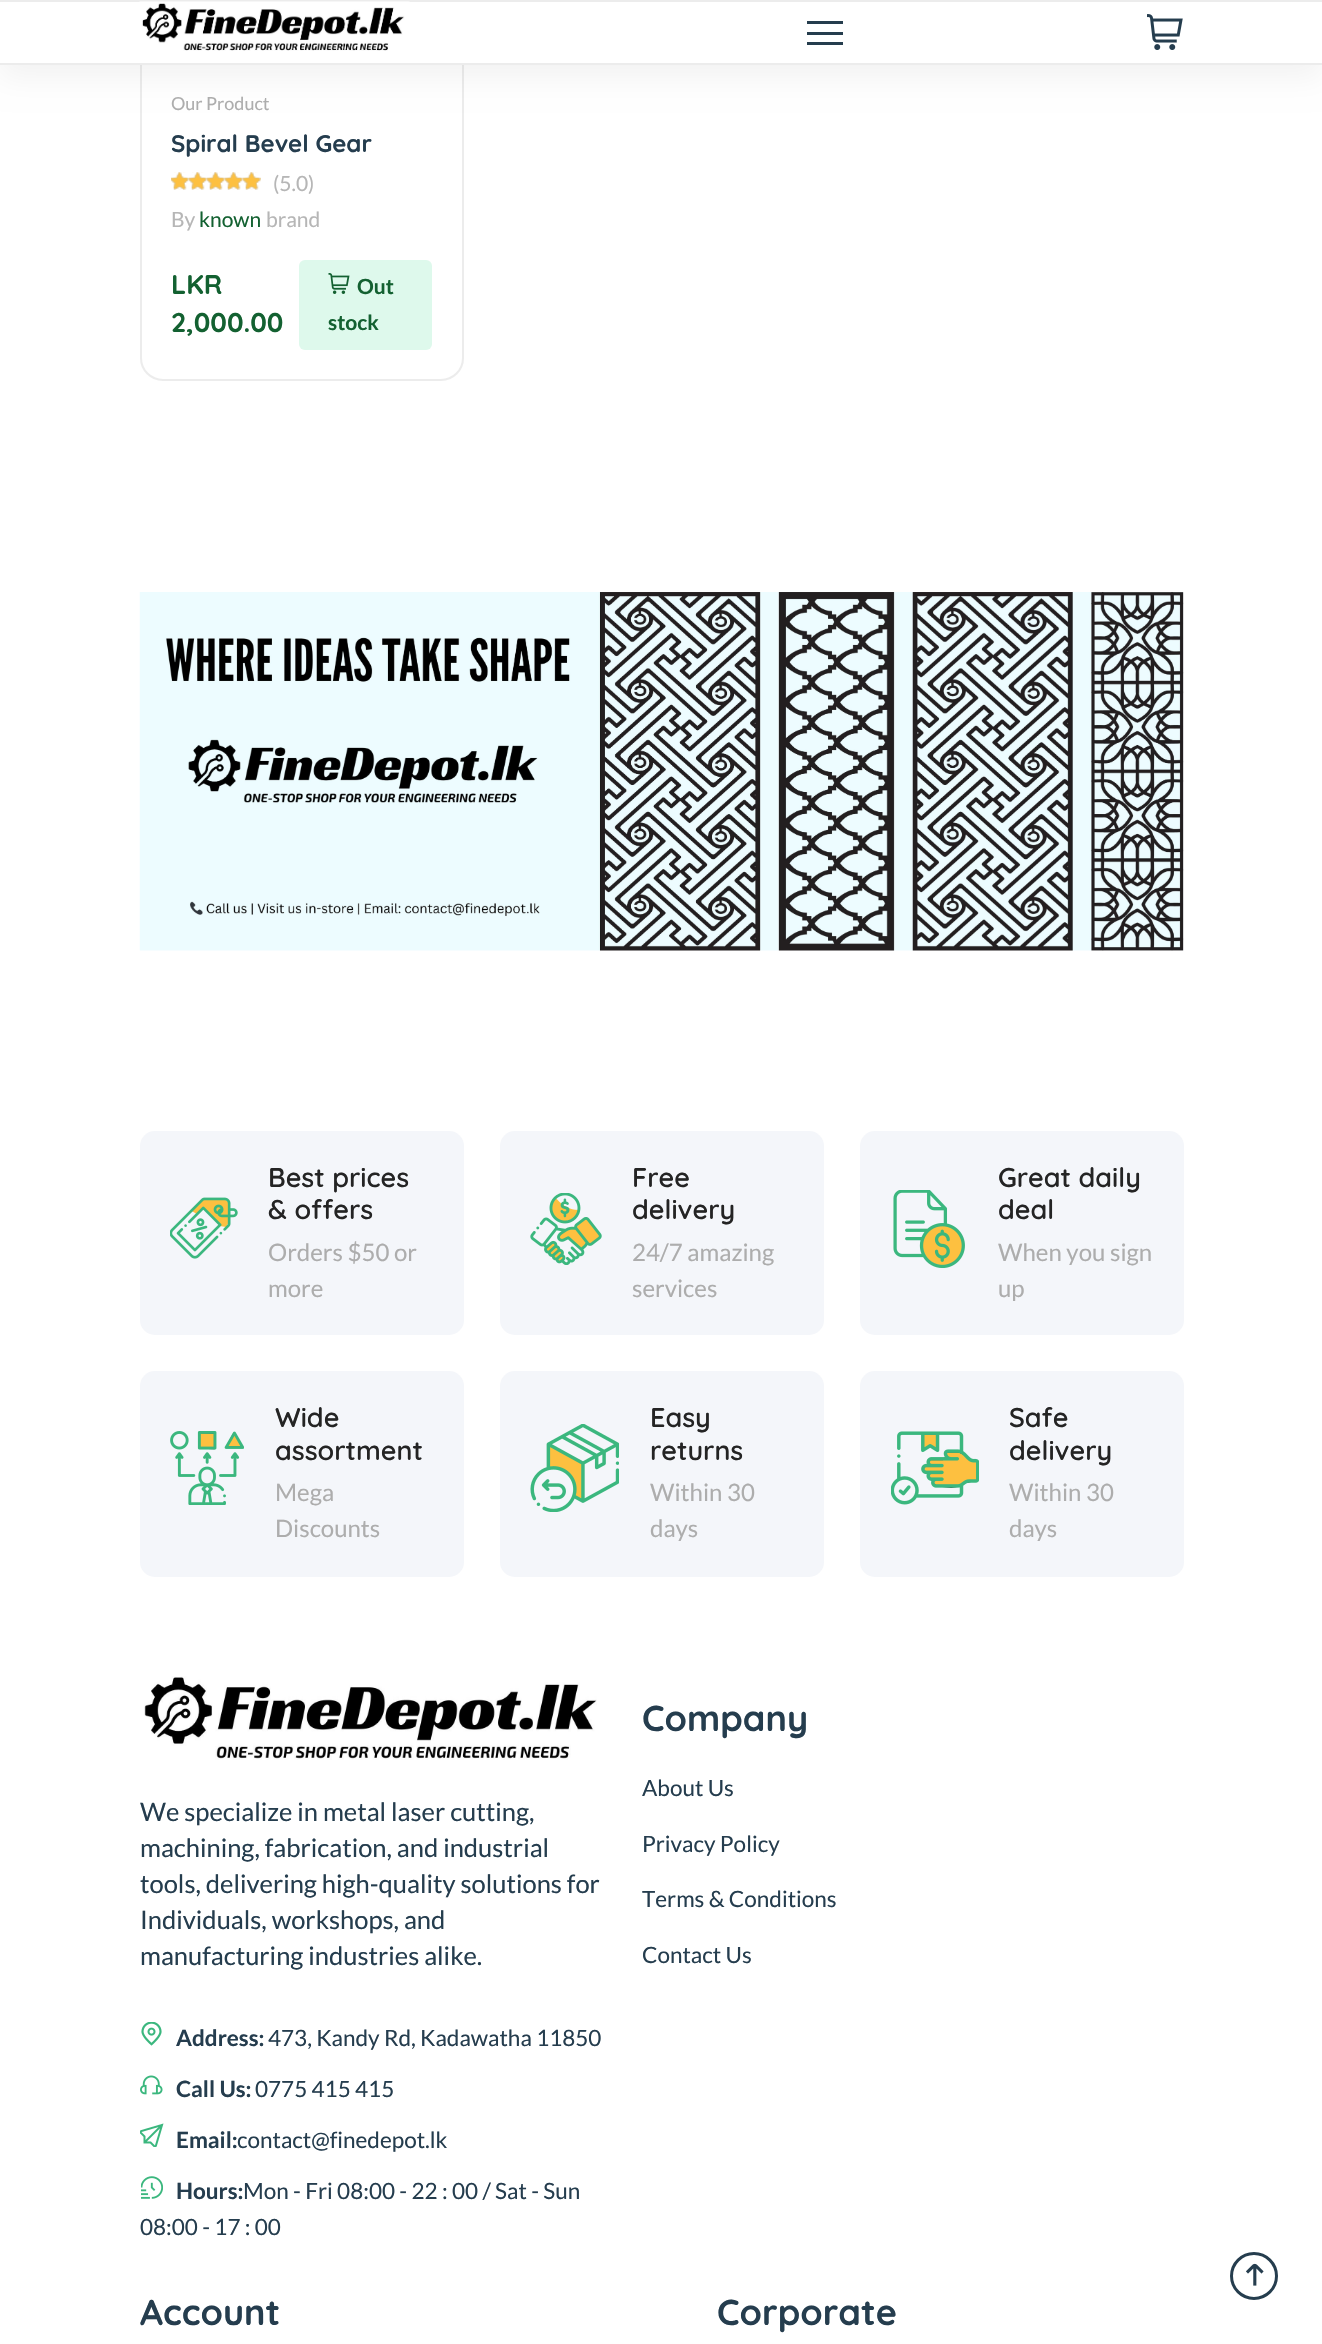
void draw(SkCanvas* canvas) {
    SkPaint paint;
    paint.setAntiAlias(true);
    auto face = [&](const char* family, int weight, float size, bool italic = false) {
        SkFontStyle style(weight, SkFontStyle::kNormal_Width,
            italic ? SkFontStyle::kItalic_Slant : SkFontStyle::kUpright_Slant);
        SkFont result(fontMgr->matchFamilyStyle(family, style), size);
        result.setSubpixel(true);
        return result;
    };
    auto write = [&](const char* s, float x, float y, const SkFont& font, SkColor color) {
        SkPaint ink(SkColor4f::FromColor(color));
        ink.setAntiAlias(true);
        canvas->drawString(s, x, y, font, ink);
    };
    auto block = [&](float x, float y, float w, float h, SkColor color) {
        SkPaint ink(SkColor4f::FromColor(color));
        ink.setAntiAlias(true);
        canvas->drawRect(SkRect::MakeXYWH(x, y, w, h), ink);
    };
    auto card = [&](float x, float y, float w, float h, float radius, SkColor color) {
        SkPaint ink(SkColor4f::FromColor(color));
        ink.setAntiAlias(true);
        canvas->drawRoundRect(SkRect::MakeXYWH(x, y, w, h), radius, radius, ink);
    };
    auto paste = [&](const char* path, float x, float y, float w, float h) {
        auto image = SkImages::DeferredFromEncodedData(SkData::MakeFromFileName(path));
        canvas->drawImageRect(image, SkRect::MakeXYWH(x, y, w, h), SkSamplingOptions());
    };
    canvas->clear(SK_ColorWHITE);
    paint.setStyle(SkPaint::kStroke_Style);
    paint.setStrokeWidth(2);
    paint.setColor(SkColorSetRGB(236, 236, 236));
    canvas->drawRoundRect(SkRect::MakeXYWH(141, -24, 322, 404), 22, 22, paint);
    paint.setStyle(SkPaint::kFill_Style);
    paint.setColor(SkColorSetARGB(13, 0, 0, 0));
    paint.setMaskFilter(SkMaskFilter::MakeBlur(kNormal_SkBlurStyle, 15));
    canvas->drawRect(SkRect::MakeXYWH(0, 12, 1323, 65), paint);
    paint.setMaskFilter(nullptr);
    block(0, 2, 1322, 61, SK_ColorWHITE);
    block(0, 0, 1322, 2, SkColorSetRGB(236, 236, 236));
    block(0, 63, 1322, 2, SkColorSetRGB(236, 236, 236));
    paste("pic1.png", 139, 1, 271, 50);
    block(807, 21, 36, 3, SkColorSetRGB(37, 61, 78));
    block(807, 32, 36, 3, SkColorSetRGB(37, 61, 78));
    block(807, 42, 36, 3, SkColorSetRGB(37, 61, 78));
    paste("pic2.png", 1147, 14, 36, 36);
    auto kFont1 = face("Lato", 400, 18);
    write("Our Product", 171, 110, kFont1, SkColorSetRGB(173, 173, 173));
    auto kFont2 = face("Quicksand", 700, 24);
    write("Spiral Bevel Gear", 171, 152, kFont2, SkColorSetRGB(37, 61, 78));
    paste("pic3.png", 171, 172, 90, 18);
    paste("pic4.png", 171, 172, 90, 18);
    auto kFont3 = face("Lato", 400, 21);
    write("(5.0)", 273, 191, kFont3, SkColorSetRGB(182, 182, 182));
    write("By", 171, 227, kFont3, SkColorSetRGB(182, 182, 182));
    write("known", 199, 227, kFont3, SkColorSetRGB(19, 97, 49));
    write("brand", 266, 227, kFont3, SkColorSetRGB(182, 182, 182));
    auto kFont4 = face("Quicksand", 700, 27);
    write("LKR", 171, 294, kFont4, SkColorSetRGB(19, 97, 49));
    write("2,000.00", 171, 332, kFont4, SkColorSetRGB(19, 97, 49));
    card(299, 260, 133, 90, 6, SkColorSetRGB(222, 249, 236));
    paste("pic5.png", 328, 273, 22, 21);
    auto kFont5 = face("Lato", 700, 21);
    write("Out", 357, 294, kFont5, SkColorSetRGB(19, 97, 49));
    write("stock", 328, 330, kFont5, SkColorSetRGB(19, 97, 49));
    paste("pic6.png", 139, 592, 1045, 359);
    card(140, 1131, 324, 204, 15, SkColorSetRGB(244, 246, 250));
    paste("pic7.png", 170, 1197, 68, 62);
    auto kFont6 = face("Quicksand", 600, 27);
    write("Best prices", 268, 1187, kFont6, SkColorSetRGB(36, 36, 36));
    write("& offers", 268, 1219, kFont6, SkColorSetRGB(36, 36, 36));
    auto kFont7 = face("Lato", 400, 24);
    write("Orders $50 or", 268, 1261, kFont7, SkColorSetRGB(173, 173, 173));
    write("more", 268, 1297, kFont7, SkColorSetRGB(173, 173, 173));
    card(500, 1131, 324, 204, 15, SkColorSetRGB(244, 246, 250));
    paste("pic8.png", 530, 1193, 72, 72);
    write("Free", 632, 1187, kFont6, SkColorSetRGB(36, 36, 36));
    write("delivery", 632, 1219, kFont6, SkColorSetRGB(36, 36, 36));
    write("24/7 amazing", 632, 1261, kFont7, SkColorSetRGB(173, 173, 173));
    write("services", 632, 1297, kFont7, SkColorSetRGB(173, 173, 173));
    card(860, 1131, 324, 204, 15, SkColorSetRGB(244, 246, 250));
    paste("pic9.png", 893, 1190, 72, 78);
    write("Great daily", 998, 1187, kFont6, SkColorSetRGB(36, 36, 36));
    write("deal", 998, 1219, kFont6, SkColorSetRGB(36, 36, 36));
    write("When you sign", 998, 1261, kFont7, SkColorSetRGB(173, 173, 173));
    write("up", 998, 1297, kFont7, SkColorSetRGB(173, 173, 173));
    card(140, 1371, 324, 206, 15, SkColorSetRGB(244, 246, 250));
    paste("pic10.png", 170, 1431, 74, 74);
    write("Wide", 275, 1427, kFont6, SkColorSetRGB(36, 36, 36));
    write("assortment", 275, 1460, kFont6, SkColorSetRGB(36, 36, 36));
    write("Mega", 275, 1501, kFont7, SkColorSetRGB(173, 173, 173));
    write("Discounts", 275, 1537, kFont7, SkColorSetRGB(173, 173, 173));
    card(500, 1371, 324, 206, 15, SkColorSetRGB(244, 246, 250));
    paste("pic11.png", 530, 1424, 89, 88);
    write("Easy", 650, 1427, kFont6, SkColorSetRGB(36, 36, 36));
    write("returns", 650, 1460, kFont6, SkColorSetRGB(36, 36, 36));
    write("Within 30", 650, 1501, kFont7, SkColorSetRGB(173, 173, 173));
    write("days", 650, 1537, kFont7, SkColorSetRGB(173, 173, 173));
    card(860, 1371, 324, 206, 15, SkColorSetRGB(244, 246, 250));
    paste("pic12.png", 891, 1431, 88, 74);
    write("Safe", 1009, 1427, kFont6, SkColorSetRGB(36, 36, 36));
    write("delivery", 1009, 1460, kFont6, SkColorSetRGB(36, 36, 36));
    write("Within 30", 1009, 1501, kFont7, SkColorSetRGB(173, 173, 173));
    write("days", 1009, 1537, kFont7, SkColorSetRGB(173, 173, 173));
    paste("pic13.png", 144, 1676, 453, 84);
    auto kFont8 = face("Lato", 400, 25.5f);
    write("We specialize in metal laser cutting,", 140, 1821, kFont8, SkColorSetRGB(37, 61, 78));
    write("machining, fabrication, and industrial", 140, 1857, kFont8, SkColorSetRGB(37, 61, 78));
    write("tools, delivering high-quality solutions for", 140, 1893, kFont8, SkColorSetRGB(37, 61, 78));
    write("Individuals, workshops, and", 140, 1929, kFont8, SkColorSetRGB(37, 61, 78));
    write("manufacturing industries alike.", 140, 1965, kFont8, SkColorSetRGB(37, 61, 78));
    paste("pic14.png", 141, 2022, 21, 24);
    auto kFont9 = face("Lato", 700, 22.5f);
    write("Address:", 176, 2046, kFont9, SkColorSetRGB(37, 61, 78));
    auto kFont10 = face("Lato", 400, 22.5f);
    write("473, Kandy Rd, Kadawatha 11850", 268, 2046, kFont10, SkColorSetRGB(37, 61, 78));
    paste("pic15.png", 140, 2075, 23, 20);
    write("Call Us:", 176, 2097, kFont9, SkColorSetRGB(37, 61, 78));
    write("0775 415 415", 255, 2097, kFont10, SkColorSetRGB(37, 61, 78));
    paste("pic16.png", 140, 2123, 24, 24);
    write("Email:", 176, 2148, kFont9, SkColorSetRGB(37, 61, 78));
    write("contact@finedepot.lk", 237, 2148, kFont10, SkColorSetRGB(37, 61, 78));
    paste("pic17.png", 141, 2176, 22, 23);
    write("Hours:", 176, 2199, kFont9, SkColorSetRGB(37, 61, 78));
    write("Mon - Fri 08:00 - 22 : 00 / Sat - Sun", 243, 2199, kFont10, SkColorSetRGB(37, 61, 78));
    write("08:00 - 17 : 00", 140, 2235, kFont10, SkColorSetRGB(37, 61, 78));
    auto kFont11 = face("Quicksand", 700, 36);
    write("Company", 642, 1731, kFont11, SkColorSetRGB(37, 61, 78));
    write("About Us", 642, 1796, kFont10, SkColorSetRGB(37, 61, 78));
    write("Privacy Policy", 642, 1852, kFont10, SkColorSetRGB(37, 61, 78));
    write("Terms & Conditions", 642, 1907, kFont10, SkColorSetRGB(37, 61, 78));
    write("Contact Us", 642, 1963, kFont10, SkColorSetRGB(37, 61, 78));
    write("Account", 140, 2325, kFont11, SkColorSetRGB(37, 61, 78));
    write("Corporate", 717, 2325, kFont11, SkColorSetRGB(37, 61, 78));
    paint.setStyle(SkPaint::kStroke_Style);
    paint.setStrokeWidth(3);
    paint.setColor(SkColorSetRGB(37, 61, 78));
    canvas->drawCircle(1254, 2276, 22.5f, paint);
    paste("pic18.png", 1246, 2263, 18, 23);
}
